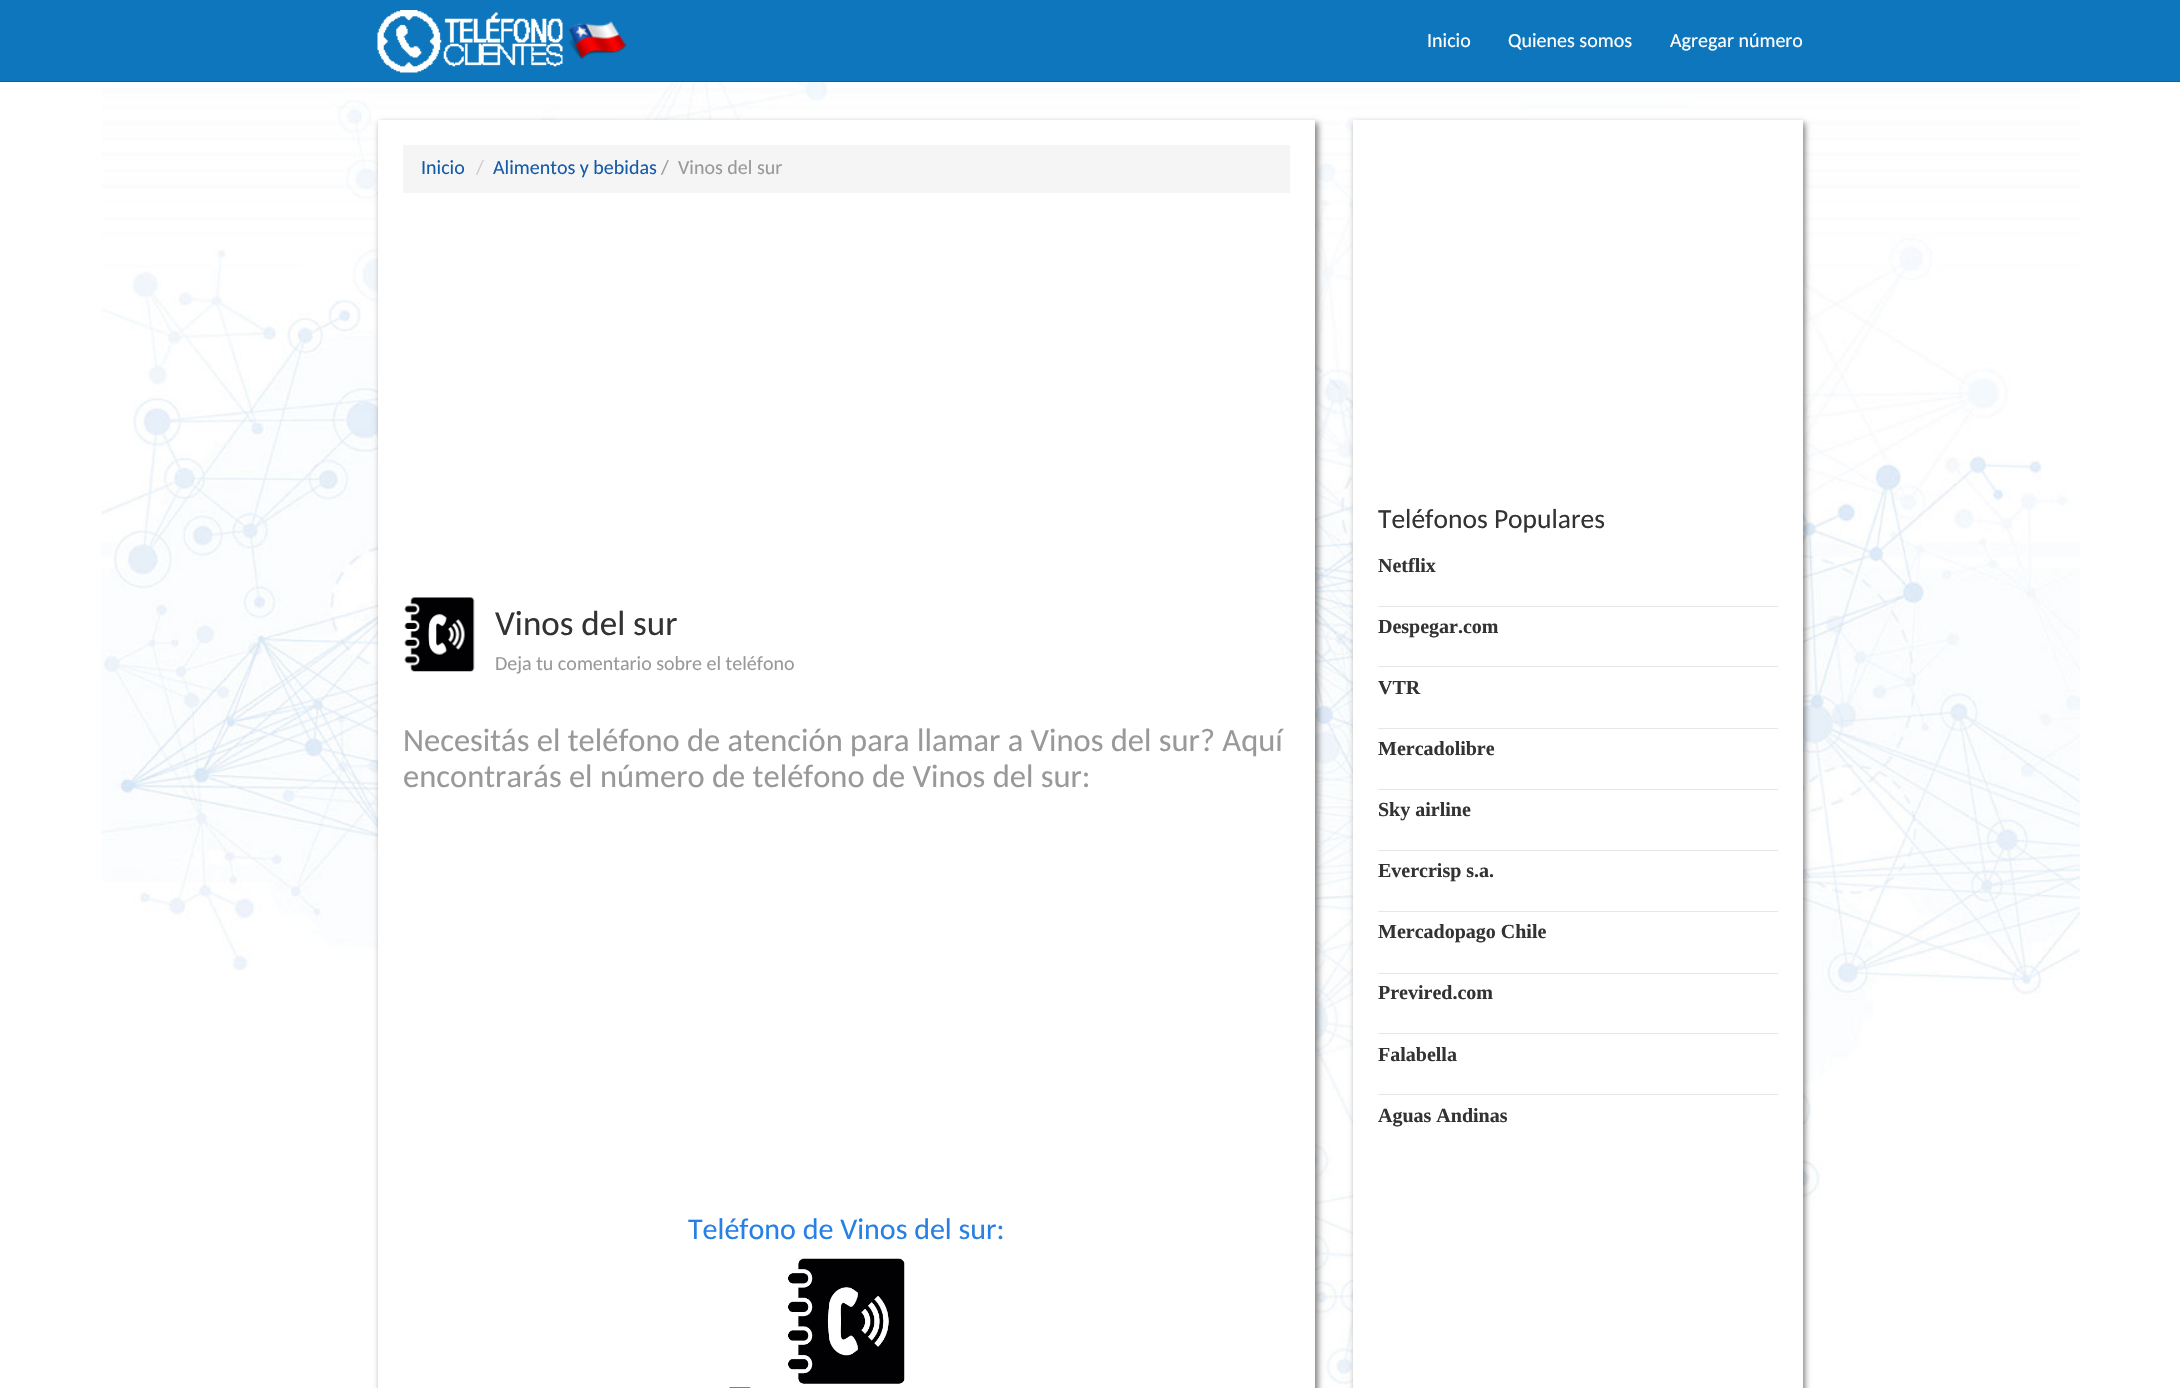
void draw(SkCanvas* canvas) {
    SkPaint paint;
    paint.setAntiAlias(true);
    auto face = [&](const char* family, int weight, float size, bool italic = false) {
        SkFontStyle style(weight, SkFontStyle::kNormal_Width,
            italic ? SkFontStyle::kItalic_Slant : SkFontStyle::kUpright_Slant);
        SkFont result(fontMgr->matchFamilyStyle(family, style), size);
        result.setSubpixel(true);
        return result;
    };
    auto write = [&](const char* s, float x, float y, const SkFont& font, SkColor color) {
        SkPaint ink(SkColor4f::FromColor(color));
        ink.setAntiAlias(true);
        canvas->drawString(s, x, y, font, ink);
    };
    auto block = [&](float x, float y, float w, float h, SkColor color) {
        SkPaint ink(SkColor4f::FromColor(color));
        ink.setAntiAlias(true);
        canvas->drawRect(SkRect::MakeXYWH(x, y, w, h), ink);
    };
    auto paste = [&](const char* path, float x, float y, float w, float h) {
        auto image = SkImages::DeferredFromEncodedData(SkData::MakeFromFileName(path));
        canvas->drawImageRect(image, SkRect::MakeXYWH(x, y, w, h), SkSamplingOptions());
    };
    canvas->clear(SK_ColorWHITE);
    paste("pic1.png", 101, 82, 1979, 1306);
    block(0, 0, 2180, 81, SkColorSetRGB(14, 118, 188));
    block(0, 81, 2180, 1, SkColorSetRGB(0, 102, 172));
    paste("pic2.png", 377, 10, 250, 63);
    auto kFont1 = face("Carlito", 400, 20);
    write("Inicio", 1427, 47, kFont1, SK_ColorWHITE);
    write("Quienes somos", 1508, 47, kFont1, SK_ColorWHITE);
    write("Agregar número", 1670, 47, kFont1, SK_ColorWHITE);
    paint.setColor(SkColorSetARGB(128, 0, 0, 0));
    paint.setMaskFilter(SkMaskFilter::MakeBlur(kNormal_SkBlurStyle, 3));
    canvas->drawRect(SkRect::MakeXYWH(380, 123, 938, 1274), paint);
    paint.setMaskFilter(nullptr);
    block(378, 120, 937, 1268, SK_ColorWHITE);
    block(403, 145, 887, 48, SkColorSetRGB(245, 245, 245));
    write("Inicio", 421, 174, kFont1, SkColorSetRGB(22, 91, 168));
    write("/", 476, 174, kFont1, SkColorSetRGB(204, 204, 204));
    write("Alimentos y bebidas", 493, 174, kFont1, SkColorSetRGB(22, 91, 168));
    write("/", 661, 174, kFont1, SkColorSetRGB(153, 153, 153));
    write("Vinos del sur", 678, 174, kFont1, SkColorSetRGB(153, 153, 153));
    paste("pic3.png", 404, 597, 71, 75);
    auto kFont2 = face("Carlito", 400, 35);
    write("Vinos del sur", 495, 635, kFont2, SkColorSetRGB(51, 51, 51));
    write("Deja tu comentario sobre el teléfono", 495, 670, kFont1, SkColorSetRGB(153, 153, 153));
    auto kFont3 = face("Carlito", 400, 32.5f);
    write("Necesitás el teléfono de atención para llamar a Vinos del sur? Aquí", 403, 751, kFont3, SkColorSetRGB(153, 153, 153));
    write("encontrarás el número de teléfono de Vinos del sur:", 403, 787, kFont3, SkColorSetRGB(153, 153, 153));
    auto kFont4 = face("Carlito", 400, 30);
    write("Teléfono de Vinos del sur:", 688, 1239, kFont4, SkColorSetRGB(39, 128, 227));
    paste("pic4.png", 788, 1258, 117, 126);
    paste("pic5.png", 729, 1387, 22, 1);
    paint.setMaskFilter(SkMaskFilter::MakeBlur(kNormal_SkBlurStyle, 3));
    canvas->drawRect(SkRect::MakeXYWH(1355, 123, 450, 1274), paint);
    paint.setMaskFilter(nullptr);
    block(1353, 120, 450, 1268, SK_ColorWHITE);
    auto kFont5 = face("Carlito", 400, 27.5f);
    write("Teléfonos Populares", 1378, 528, kFont5, SkColorSetRGB(51, 51, 51));
    block(1378, 606, 400, 1, SkColorSetRGB(230, 230, 230));
    auto kFont6 = face("Liberation Serif", 700, 20);
    write("Netflix", 1378, 572, kFont6, SkColorSetRGB(51, 51, 51));
    block(1378, 666, 400, 1, SkColorSetRGB(230, 230, 230));
    write("Despegar.com", 1378, 633, kFont6, SkColorSetRGB(51, 51, 51));
    block(1378, 728, 400, 1, SkColorSetRGB(230, 230, 230));
    write("VTR", 1378, 694, kFont6, SkColorSetRGB(51, 51, 51));
    block(1378, 789, 400, 1, SkColorSetRGB(230, 230, 230));
    write("Mercadolibre", 1378, 755, kFont6, SkColorSetRGB(51, 51, 51));
    block(1378, 850, 400, 1, SkColorSetRGB(230, 230, 230));
    write("Sky airline", 1378, 816, kFont6, SkColorSetRGB(51, 51, 51));
    block(1378, 911, 400, 1, SkColorSetRGB(230, 230, 230));
    write("Evercrisp s.a.", 1378, 877, kFont6, SkColorSetRGB(51, 51, 51));
    block(1378, 973, 400, 1, SkColorSetRGB(230, 230, 230));
    write("Mercadopago Chile", 1378, 938, kFont6, SkColorSetRGB(51, 51, 51));
    block(1378, 1033, 400, 1, SkColorSetRGB(230, 230, 230));
    write("Previred.com", 1378, 999, kFont6, SkColorSetRGB(51, 51, 51));
    block(1378, 1094, 400, 1, SkColorSetRGB(230, 230, 230));
    write("Falabella", 1378, 1061, kFont6, SkColorSetRGB(51, 51, 51));
    write("Aguas Andinas", 1378, 1122, kFont6, SkColorSetRGB(51, 51, 51));
}
